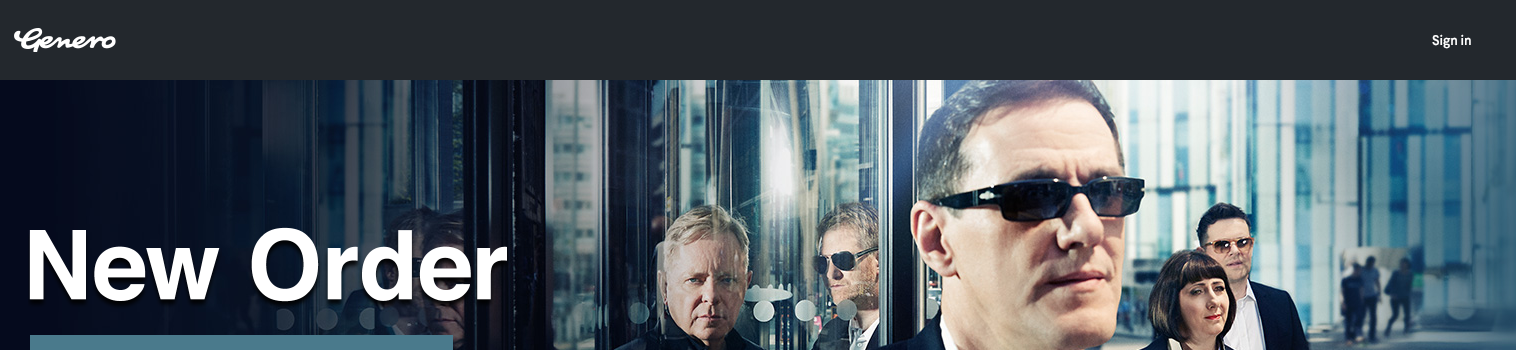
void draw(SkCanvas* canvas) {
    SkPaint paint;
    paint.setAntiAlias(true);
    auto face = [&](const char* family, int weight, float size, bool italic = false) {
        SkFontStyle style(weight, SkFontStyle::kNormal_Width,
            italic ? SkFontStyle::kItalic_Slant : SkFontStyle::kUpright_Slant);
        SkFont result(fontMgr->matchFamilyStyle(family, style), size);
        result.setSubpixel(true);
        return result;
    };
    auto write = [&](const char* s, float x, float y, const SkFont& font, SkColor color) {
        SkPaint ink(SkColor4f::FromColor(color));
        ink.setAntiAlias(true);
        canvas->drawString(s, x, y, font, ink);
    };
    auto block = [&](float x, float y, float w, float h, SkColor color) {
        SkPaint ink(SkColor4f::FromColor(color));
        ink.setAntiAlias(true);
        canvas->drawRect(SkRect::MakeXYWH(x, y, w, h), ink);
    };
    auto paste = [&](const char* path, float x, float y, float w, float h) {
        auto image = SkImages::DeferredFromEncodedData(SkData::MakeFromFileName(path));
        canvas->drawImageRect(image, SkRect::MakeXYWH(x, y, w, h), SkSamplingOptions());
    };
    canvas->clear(SK_ColorWHITE);
    block(0, 0, 1516, 80, SkColorSetRGB(35, 40, 45));
    paste("pic1.png", 14, 28, 102, 24);
    auto kFont1 = face("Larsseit", 400, 14);
    write("Sign in", 1432, 45, kFont1, SK_ColorWHITE);
    paste("pic2.png", 0, 80, 1516, 270);
    paste("pic3.png", 28, 227, 481, 82);
    block(30, 335, 423, 15, SkColorSetRGB(74, 122, 140));
}
